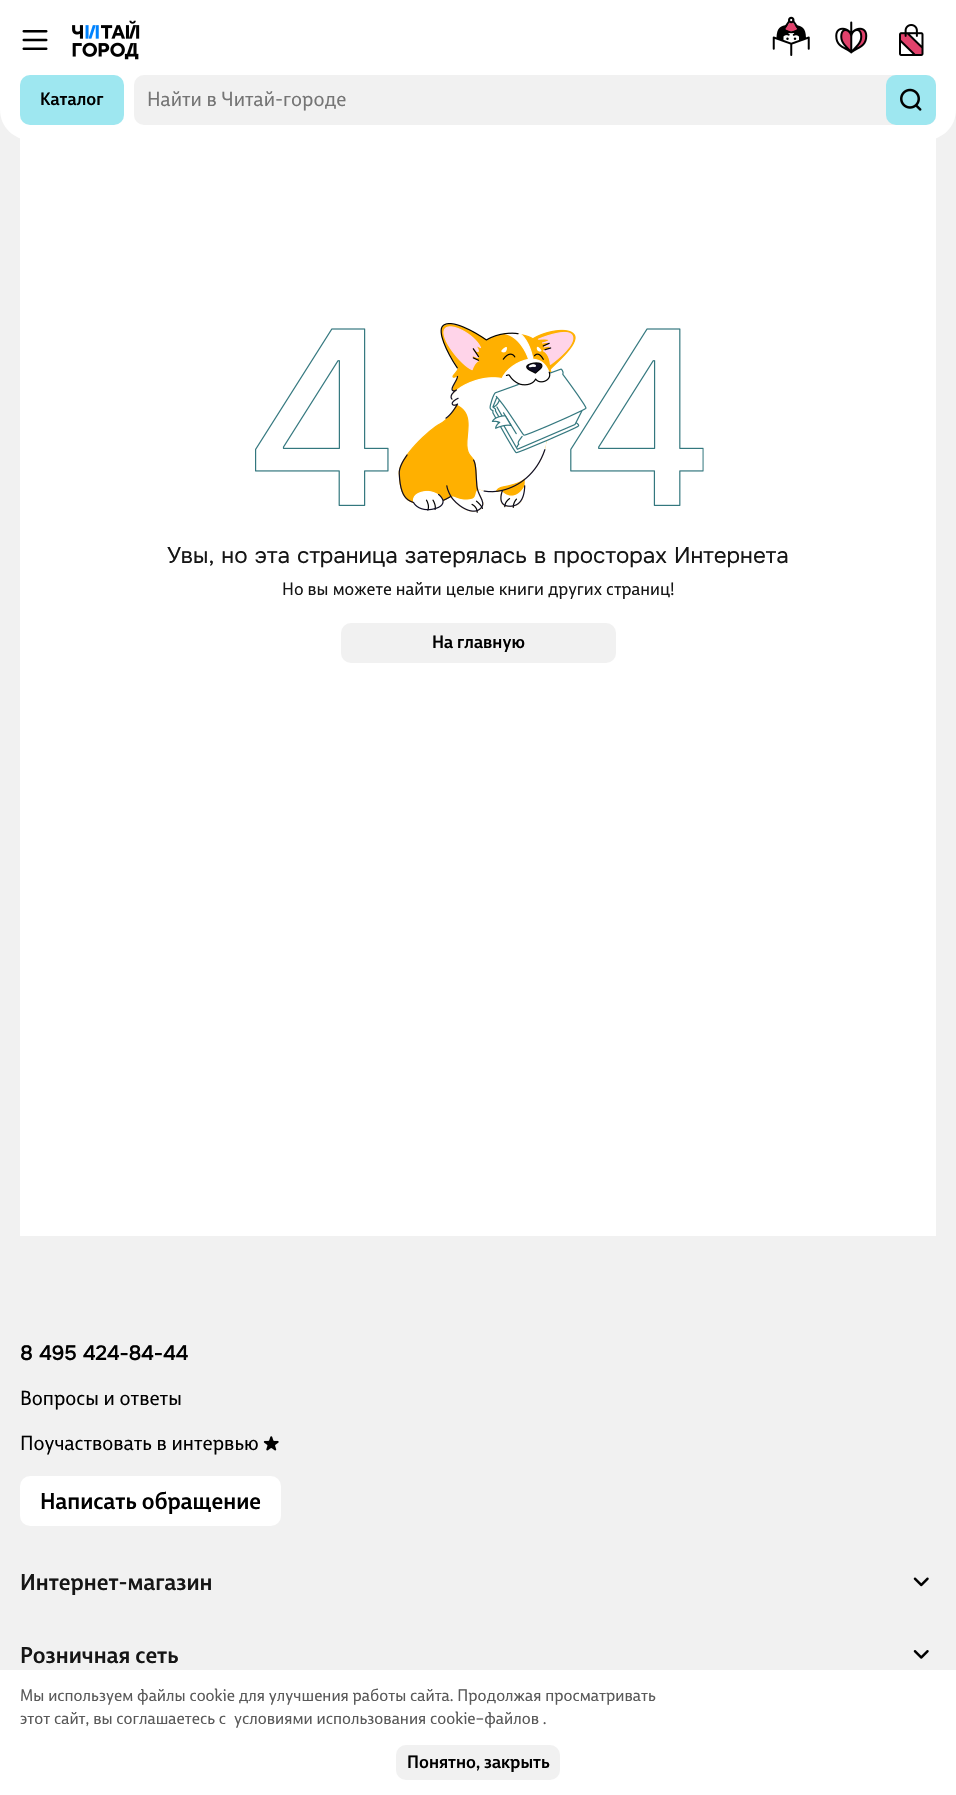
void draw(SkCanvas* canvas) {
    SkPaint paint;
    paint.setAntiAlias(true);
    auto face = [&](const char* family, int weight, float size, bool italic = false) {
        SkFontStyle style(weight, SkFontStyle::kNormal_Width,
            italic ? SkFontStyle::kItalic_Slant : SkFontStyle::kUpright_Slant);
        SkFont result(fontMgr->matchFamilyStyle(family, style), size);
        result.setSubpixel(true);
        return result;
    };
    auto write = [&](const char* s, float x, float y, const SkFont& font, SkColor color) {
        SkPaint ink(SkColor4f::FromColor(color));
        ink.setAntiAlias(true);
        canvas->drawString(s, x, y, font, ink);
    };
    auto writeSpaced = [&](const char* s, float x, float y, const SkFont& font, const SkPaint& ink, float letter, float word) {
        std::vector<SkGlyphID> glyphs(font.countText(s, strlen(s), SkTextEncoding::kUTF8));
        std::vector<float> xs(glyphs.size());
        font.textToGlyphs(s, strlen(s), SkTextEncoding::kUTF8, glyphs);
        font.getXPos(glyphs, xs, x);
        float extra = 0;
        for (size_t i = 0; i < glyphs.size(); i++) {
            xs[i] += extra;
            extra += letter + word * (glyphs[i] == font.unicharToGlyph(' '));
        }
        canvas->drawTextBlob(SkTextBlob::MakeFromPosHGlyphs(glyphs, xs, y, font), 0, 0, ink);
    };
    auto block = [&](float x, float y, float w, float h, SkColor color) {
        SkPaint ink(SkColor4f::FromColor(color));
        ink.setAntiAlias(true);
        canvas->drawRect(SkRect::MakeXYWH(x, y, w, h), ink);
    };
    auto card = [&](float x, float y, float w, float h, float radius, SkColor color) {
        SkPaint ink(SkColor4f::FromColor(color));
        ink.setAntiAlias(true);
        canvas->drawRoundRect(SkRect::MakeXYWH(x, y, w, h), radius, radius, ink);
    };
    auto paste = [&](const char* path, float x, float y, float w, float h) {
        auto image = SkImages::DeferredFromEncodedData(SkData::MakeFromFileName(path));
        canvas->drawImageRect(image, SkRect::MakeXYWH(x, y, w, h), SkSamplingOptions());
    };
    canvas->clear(SkColorSetRGB(241, 241, 241));
    block(20, 138, 916, 1098, SK_ColorWHITE);
    paint.setColor(SK_ColorWHITE);
    canvas->drawPath(SkPathBuilder().moveTo(0, 0).lineTo(956, 0).lineTo(956, 110).cubicTo(956, 126.5f, 942.5f, 140, 926, 140).lineTo(30, 140).cubicTo(13.5f, 140, 0, 126.5f, 0, 110).close().detach(), paint);
    paste("pic1.png", 22, 30, 26, 20);
    paste("pic2.png", 72, 20, 68, 40);
    paste("pic3.png", 772, 16, 38, 40);
    paste("pic4.png", 835, 21, 33, 33);
    paste("pic5.png", 899, 24, 25, 32);
    card(20, 75, 104, 50, 10, SkColorSetRGB(158, 231, 240));
    auto kFont1 = face("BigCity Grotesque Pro", 500, 17.5f);
    write("Каталог", 40, 105, kFont1, SK_ColorBLACK);
    card(134, 75, 802, 50, 10, SkColorSetRGB(241, 241, 241));
    auto kFont2 = face("BigCity Grotesque Pro", 400, 20);
    write("Найти в Читай-городе", 147, 106, kFont2, SkColorSetRGB(117, 117, 117));
    card(886, 75, 50, 50, 10, SkColorSetRGB(158, 231, 240));
    paste("pic6.png", 900, 88, 22, 23);
    paste("pic7.png", 255, 323, 449, 190);
    auto kFont3 = face("Onest", 400, 22.5f);
    paint.setColor(SkColorSetRGB(22, 22, 22));
    writeSpaced("Увы, но эта страница затерялась в просторах Интернета", 167, 563, kFont3, paint, 0, 1);
    auto kFont4 = face("BigCity Grotesque Pro", 400, 17.5f);
    write("Но вы можете найти целые книги других страниц!", 282, 595, kFont4, SkColorSetRGB(22, 22, 22));
    card(341, 623, 275, 40, 10, SkColorSetRGB(241, 241, 241));
    write("На главную", 432, 648, kFont1, SK_ColorBLACK);
    block(0, 1670, 956, 125, SK_ColorWHITE);
    auto kFont5 = face("BigCity Grotesque Pro", 400, 16.25f);
    write("Мы используем файлы cookie для улучшения работы сайта. Продолжая просматривать", 20, 1701, kFont5, SkColorSetRGB(89, 89, 89));
    write("этот сайт, вы соглашаетесь с", 20, 1724, kFont5, SkColorSetRGB(89, 89, 89));
    write("условиями использования cookie–файлов .", 234, 1724, kFont5, SkColorSetRGB(89, 89, 89));
    card(396, 1745, 164, 35, 10, SkColorSetRGB(241, 241, 241));
    write("Понятно, закрыть", 407, 1768, kFont1, SK_ColorBLACK);
    auto kFont6 = face("Onest", 700, 20);
    paint.setColor(SK_ColorBLACK);
    writeSpaced("8 495 424-84-44", 20, 1360, kFont6, paint, 0, 1);
    write("Вопросы и ответы", 20, 1405, kFont2, SK_ColorBLACK);
    write("Поучаствовать в интервью", 20, 1450, kFont2, SK_ColorBLACK);
    paste("pic8.png", 263, 1436, 16, 15);
    card(20, 1476, 261, 50, 10, SK_ColorWHITE);
    auto kFont7 = face("BigCity Grotesque Pro", 500, 22.5f);
    write("Написать обращение", 40, 1509, kFont7, SK_ColorBLACK);
    write("Интернет-магазин", 20, 1590, kFont7, SkColorSetRGB(22, 22, 22));
    paste("pic9.png", 913, 1577, 16, 10);
    write("Розничная сеть", 20, 1663, kFont7, SkColorSetRGB(22, 22, 22));
    paste("pic10.png", 913, 1650, 16, 9);
}
